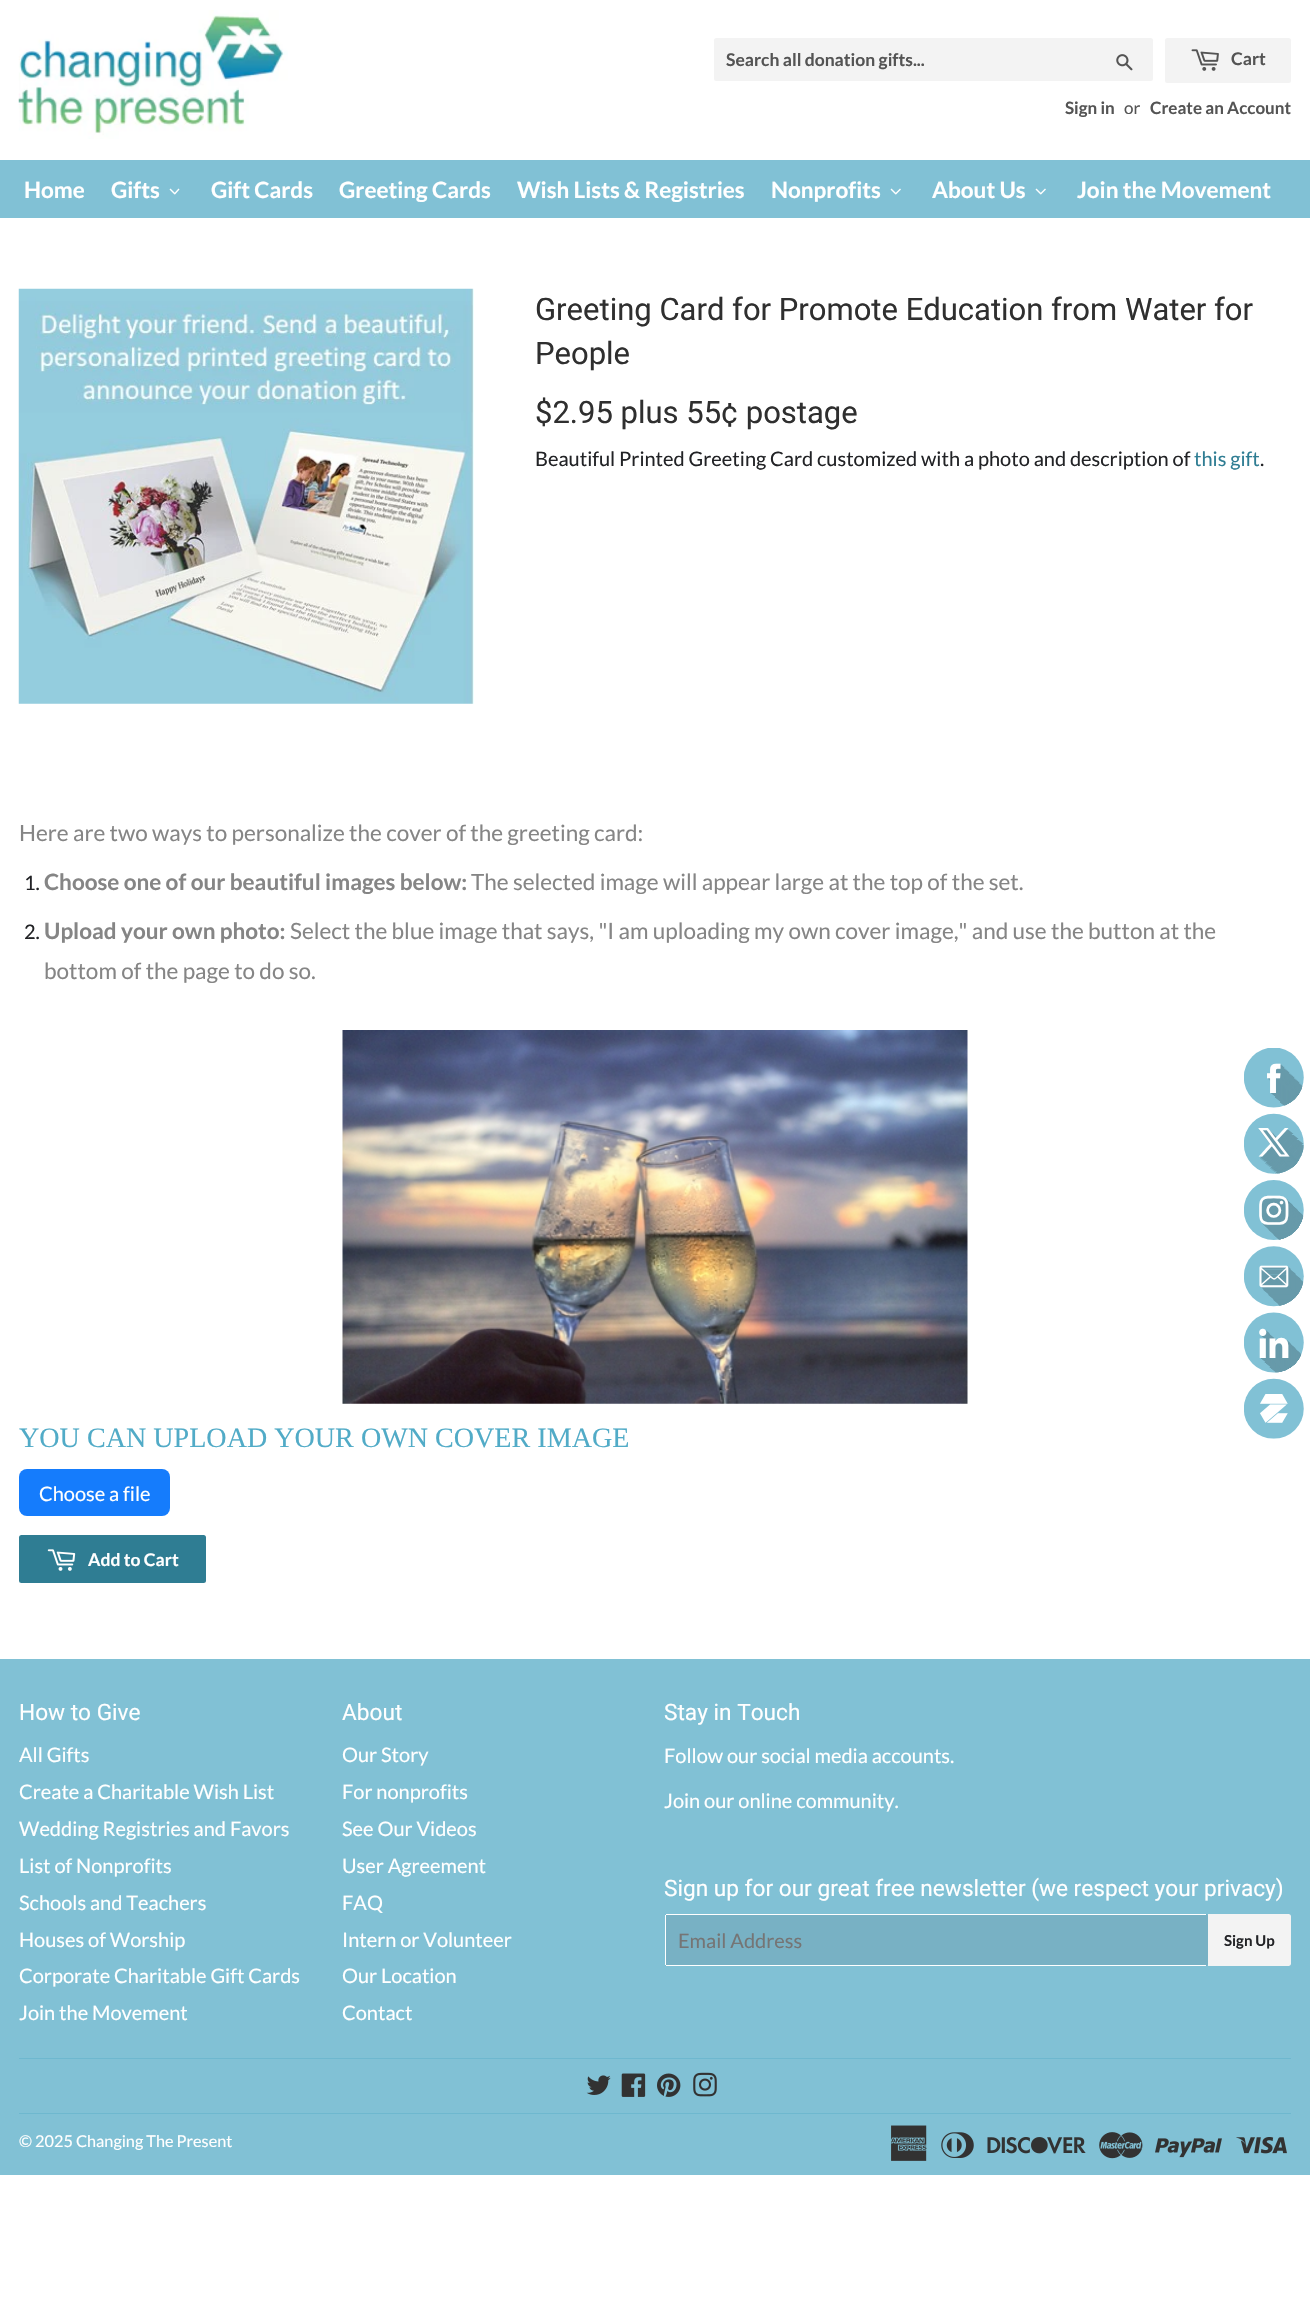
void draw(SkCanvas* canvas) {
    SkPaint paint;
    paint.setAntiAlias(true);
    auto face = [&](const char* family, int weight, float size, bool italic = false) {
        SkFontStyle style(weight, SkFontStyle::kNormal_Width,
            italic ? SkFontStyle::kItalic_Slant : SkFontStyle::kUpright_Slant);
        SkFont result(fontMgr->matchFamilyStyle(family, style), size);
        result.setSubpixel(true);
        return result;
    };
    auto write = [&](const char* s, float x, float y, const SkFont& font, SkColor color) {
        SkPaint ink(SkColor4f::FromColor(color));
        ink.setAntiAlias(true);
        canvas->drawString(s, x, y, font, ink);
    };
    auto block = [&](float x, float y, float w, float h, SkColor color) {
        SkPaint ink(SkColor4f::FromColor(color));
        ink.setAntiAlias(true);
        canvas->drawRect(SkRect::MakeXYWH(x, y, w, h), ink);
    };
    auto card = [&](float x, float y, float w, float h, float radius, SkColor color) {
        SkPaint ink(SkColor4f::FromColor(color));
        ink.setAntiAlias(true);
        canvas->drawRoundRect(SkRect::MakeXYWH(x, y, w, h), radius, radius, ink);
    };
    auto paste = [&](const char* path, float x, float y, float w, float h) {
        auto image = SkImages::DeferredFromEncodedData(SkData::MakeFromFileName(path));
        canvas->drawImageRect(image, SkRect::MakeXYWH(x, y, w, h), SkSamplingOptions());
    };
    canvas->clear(SK_ColorWHITE);
    paste("pic1.png", 18, 10, 270, 129);
    card(714, 38, 439, 43, 2.5f, SkColorSetRGB(243, 243, 243));
    auto kFont1 = face("Lato", 700, 17.5f);
    write("Search all donation gifts...", 726, 66, kFont1, SkColorSetRGB(84, 84, 84));
    paste("pic2.png", 1116, 54, 17, 17);
    card(1165, 38, 126, 45, 2.5f, SkColorSetRGB(243, 243, 243));
    paste("pic3.png", 1191, 49, 28, 22);
    write("Cart", 1231, 65, kFont1, SkColorSetRGB(84, 84, 84));
    auto kFont2 = face("Lato", 700, 17);
    write("Sign in", 1065, 114, kFont2, SkColorSetRGB(84, 84, 84));
    auto kFont3 = face("Lato", 400, 17);
    write("or", 1124, 114, kFont3, SkColorSetRGB(84, 84, 84));
    write("Create an Account", 1150, 114, kFont2, SkColorSetRGB(84, 84, 84));
    block(0, 160, 1310, 58, SkColorSetRGB(129, 193, 213));
    auto kFont4 = face("Lato", 700, 22.5f);
    write("Home", 24, 198, kFont4, SK_ColorWHITE);
    write("Gifts", 111, 198, kFont4, SK_ColorWHITE);
    paint.setColor(SK_ColorWHITE);
    canvas->drawPath(SkPathBuilder().moveTo(178.5f, 188.5f).lineTo(179.5f, 189.5f).lineTo(175, 194.5f).lineTo(174, 193.5f).close().detach(), paint);
    canvas->drawPath(SkPathBuilder().moveTo(170.5f, 188.5f).lineTo(175.5f, 193.5f).lineTo(174.5f, 194.5f).lineTo(169.5f, 189.5f).close().detach(), paint);
    write("Gift Cards", 211, 198, kFont4, SK_ColorWHITE);
    write("Greeting Cards", 339, 198, kFont4, SK_ColorWHITE);
    write("Wish Lists & Registries", 517, 198, kFont4, SK_ColorWHITE);
    write("Nonprofits", 771, 198, kFont4, SK_ColorWHITE);
    canvas->drawPath(SkPathBuilder().moveTo(900, 188.5f).lineTo(901, 189.5f).lineTo(896, 194.5f).lineTo(895, 193.5f).close().detach(), paint);
    canvas->drawPath(SkPathBuilder().moveTo(891.5f, 188.5f).lineTo(896.5f, 193.5f).lineTo(895.5f, 194.5f).lineTo(890.5f, 189.5f).close().detach(), paint);
    write("About Us", 932, 198, kFont4, SK_ColorWHITE);
    canvas->drawPath(SkPathBuilder().moveTo(1045, 188.5f).lineTo(1046, 189.5f).lineTo(1041, 194.5f).lineTo(1040, 193.5f).close().detach(), paint);
    canvas->drawPath(SkPathBuilder().moveTo(1036.5f, 188.5f).lineTo(1041.5f, 193.5f).lineTo(1040.5f, 194.5f).lineTo(1035.5f, 189.5f).close().detach(), paint);
    write("Join the Movement", 1077, 198, kFont4, SK_ColorWHITE);
    paste("pic4.png", 18, 288, 456, 416);
    auto kFont5 = face("Roboto", 400, 31);
    write("Greeting Card for Promote Education from Water for", 535, 320, kFont5, SkColorSetRGB(47, 47, 47));
    write("People", 535, 364, kFont5, SkColorSetRGB(47, 47, 47));
    write("$2.95 plus 55¢ postage", 535, 423, kFont5, SkColorSetRGB(47, 47, 47));
    auto kFont6 = face("Lato", 400, 20);
    write("Beautiful Printed Greeting Card customized with a photo and description of", 535, 466, kFont6, SkColorSetRGB(34, 35, 38));
    write("this gift", 1194, 466, kFont6, SkColorSetRGB(47, 125, 147));
    write(".", 1260, 466, kFont6, SkColorSetRGB(34, 35, 38));
    auto kFont7 = face("Lato", 400, 22.5f);
    write("Here are two ways to personalize the cover of the greeting card:", 19, 841, kFont7, SkColorSetRGB(133, 133, 133));
    write("1.", 24, 890, kFont6, SkColorSetRGB(34, 35, 38));
    write("Choose one of our beautiful images below:", 44, 890, kFont4, SkColorSetRGB(133, 133, 133));
    write("The selected image will appear large at the top of the set.", 471, 890, kFont7, SkColorSetRGB(133, 133, 133));
    write("2.", 24, 939, kFont6, SkColorSetRGB(34, 35, 38));
    write("Upload your own photo:", 44, 939, kFont4, SkColorSetRGB(133, 133, 133));
    write("Select the blue image that says, \"I am uploading my own cover image,\" and use the button at the", 290, 939, kFont7, SkColorSetRGB(133, 133, 133));
    write("bottom of the page to do so.", 44, 979, kFont7, SkColorSetRGB(133, 133, 133));
    paste("pic5.png", 342, 1030, 626, 374);
    auto kFont8 = face("Liberation Serif", 400, 28.1f);
    write("YOU CAN UPLOAD YOUR OWN COVER IMAGE", 19, 1447, kFont8, SkColorSetRGB(81, 171, 199));
    card(19, 1469, 151, 47, 8, SkColorSetRGB(21, 124, 252));
    write("Choose a file", 39, 1501, kFont6, SK_ColorWHITE);
    card(19, 1535, 187, 48, 2.5f, SkColorSetRGB(47, 125, 147));
    paste("pic6.png", 47, 1549, 29, 22);
    write("Add to Cart", 88, 1566, kFont1, SK_ColorWHITE);
    paste("pic7.png", 1244, 1048, 60, 391);
    block(0, 1659, 1310, 516, SkColorSetRGB(129, 193, 213));
    auto kFont9 = face("Roboto", 400, 22.65f);
    write("How to Give", 19, 1720, kFont9, SK_ColorWHITE);
    write("All Gifts", 19, 1762, kFont6, SK_ColorWHITE);
    write("Create a Charitable Wish List", 19, 1799, kFont6, SK_ColorWHITE);
    write("Wedding Registries and Favors", 19, 1836, kFont6, SK_ColorWHITE);
    write("List of Nonprofits", 19, 1873, kFont6, SK_ColorWHITE);
    write("Schools and Teachers", 19, 1910, kFont6, SK_ColorWHITE);
    write("Houses of Worship", 19, 1947, kFont6, SK_ColorWHITE);
    write("Corporate Charitable Gift Cards", 19, 1983, kFont6, SK_ColorWHITE);
    write("Join the Movement", 19, 2020, kFont6, SK_ColorWHITE);
    write("About", 342, 1720, kFont9, SK_ColorWHITE);
    write("Our Story", 342, 1762, kFont6, SK_ColorWHITE);
    write("For nonprofits", 342, 1799, kFont6, SK_ColorWHITE);
    write("See Our Videos", 342, 1836, kFont6, SK_ColorWHITE);
    write("User Agreement", 342, 1873, kFont6, SK_ColorWHITE);
    write("FAQ", 342, 1910, kFont6, SK_ColorWHITE);
    write("Intern or Volunteer", 342, 1947, kFont6, SK_ColorWHITE);
    write("Our Location", 342, 1983, kFont6, SK_ColorWHITE);
    write("Contact", 342, 2020, kFont6, SK_ColorWHITE);
    write("Stay in Touch", 664, 1720, kFont9, SK_ColorWHITE);
    write("Follow our social media accounts.", 664, 1763, kFont6, SK_ColorWHITE);
    write("Join our online community.", 664, 1808, kFont6, SK_ColorWHITE);
    write("Sign up for our great free newsletter (we respect your privacy)", 664, 1896, kFont9, SK_ColorWHITE);
    card(665, 1914, 543, 52, 2.5f, SkColorSetRGB(120, 177, 196));
    block(666, 1914, 540, 1, SK_ColorWHITE);
    block(666, 1965, 540, 1, SK_ColorWHITE);
    block(665, 1915, 1, 50, SK_ColorWHITE);
    write("Email Address", 678, 1948, kFont6, SkColorSetRGB(117, 117, 117));
    paint.setColor(SkColorSetRGB(243, 243, 243));
    canvas->drawPath(SkPathBuilder().moveTo(1208, 1914).lineTo(1288.5f, 1914).cubicTo(1290, 1914, 1291, 1915, 1291, 1916.5f).lineTo(1291, 1963.5f).cubicTo(1291, 1965, 1290, 1966, 1288.5f, 1966).lineTo(1208, 1966).close().detach(), paint);
    auto kFont10 = face("Lato", 700, 15);
    write("Sign Up", 1224, 1946, kFont10, SkColorSetRGB(34, 35, 38));
    block(19, 2058, 1272, 1, SkColorSetRGB(110, 184, 207));
    paste("pic8.png", 586, 2075, 25, 20);
    paste("pic9.png", 621, 2073, 25, 24);
    paste("pic10.png", 657, 2073, 24, 24);
    paste("pic11.png", 693, 2072, 24, 25);
    block(19, 2113, 1272, 1, SkColorSetRGB(110, 184, 207));
    auto kFont11 = face("Lato", 400, 16.25f);
    write("© 2025 Changing The Present", 19, 2147, kFont11, SK_ColorWHITE);
    paste("pic12.png", 891, 2125, 36, 36);
    paste("pic13.png", 941, 2132, 33, 26);
    paste("pic14.png", 987, 2137, 99, 17);
    paste("pic15.png", 1099, 2132, 44, 27);
    paste("pic16.png", 1155, 2138, 67, 20);
    paste("pic17.png", 1236, 2137, 51, 17);
}
